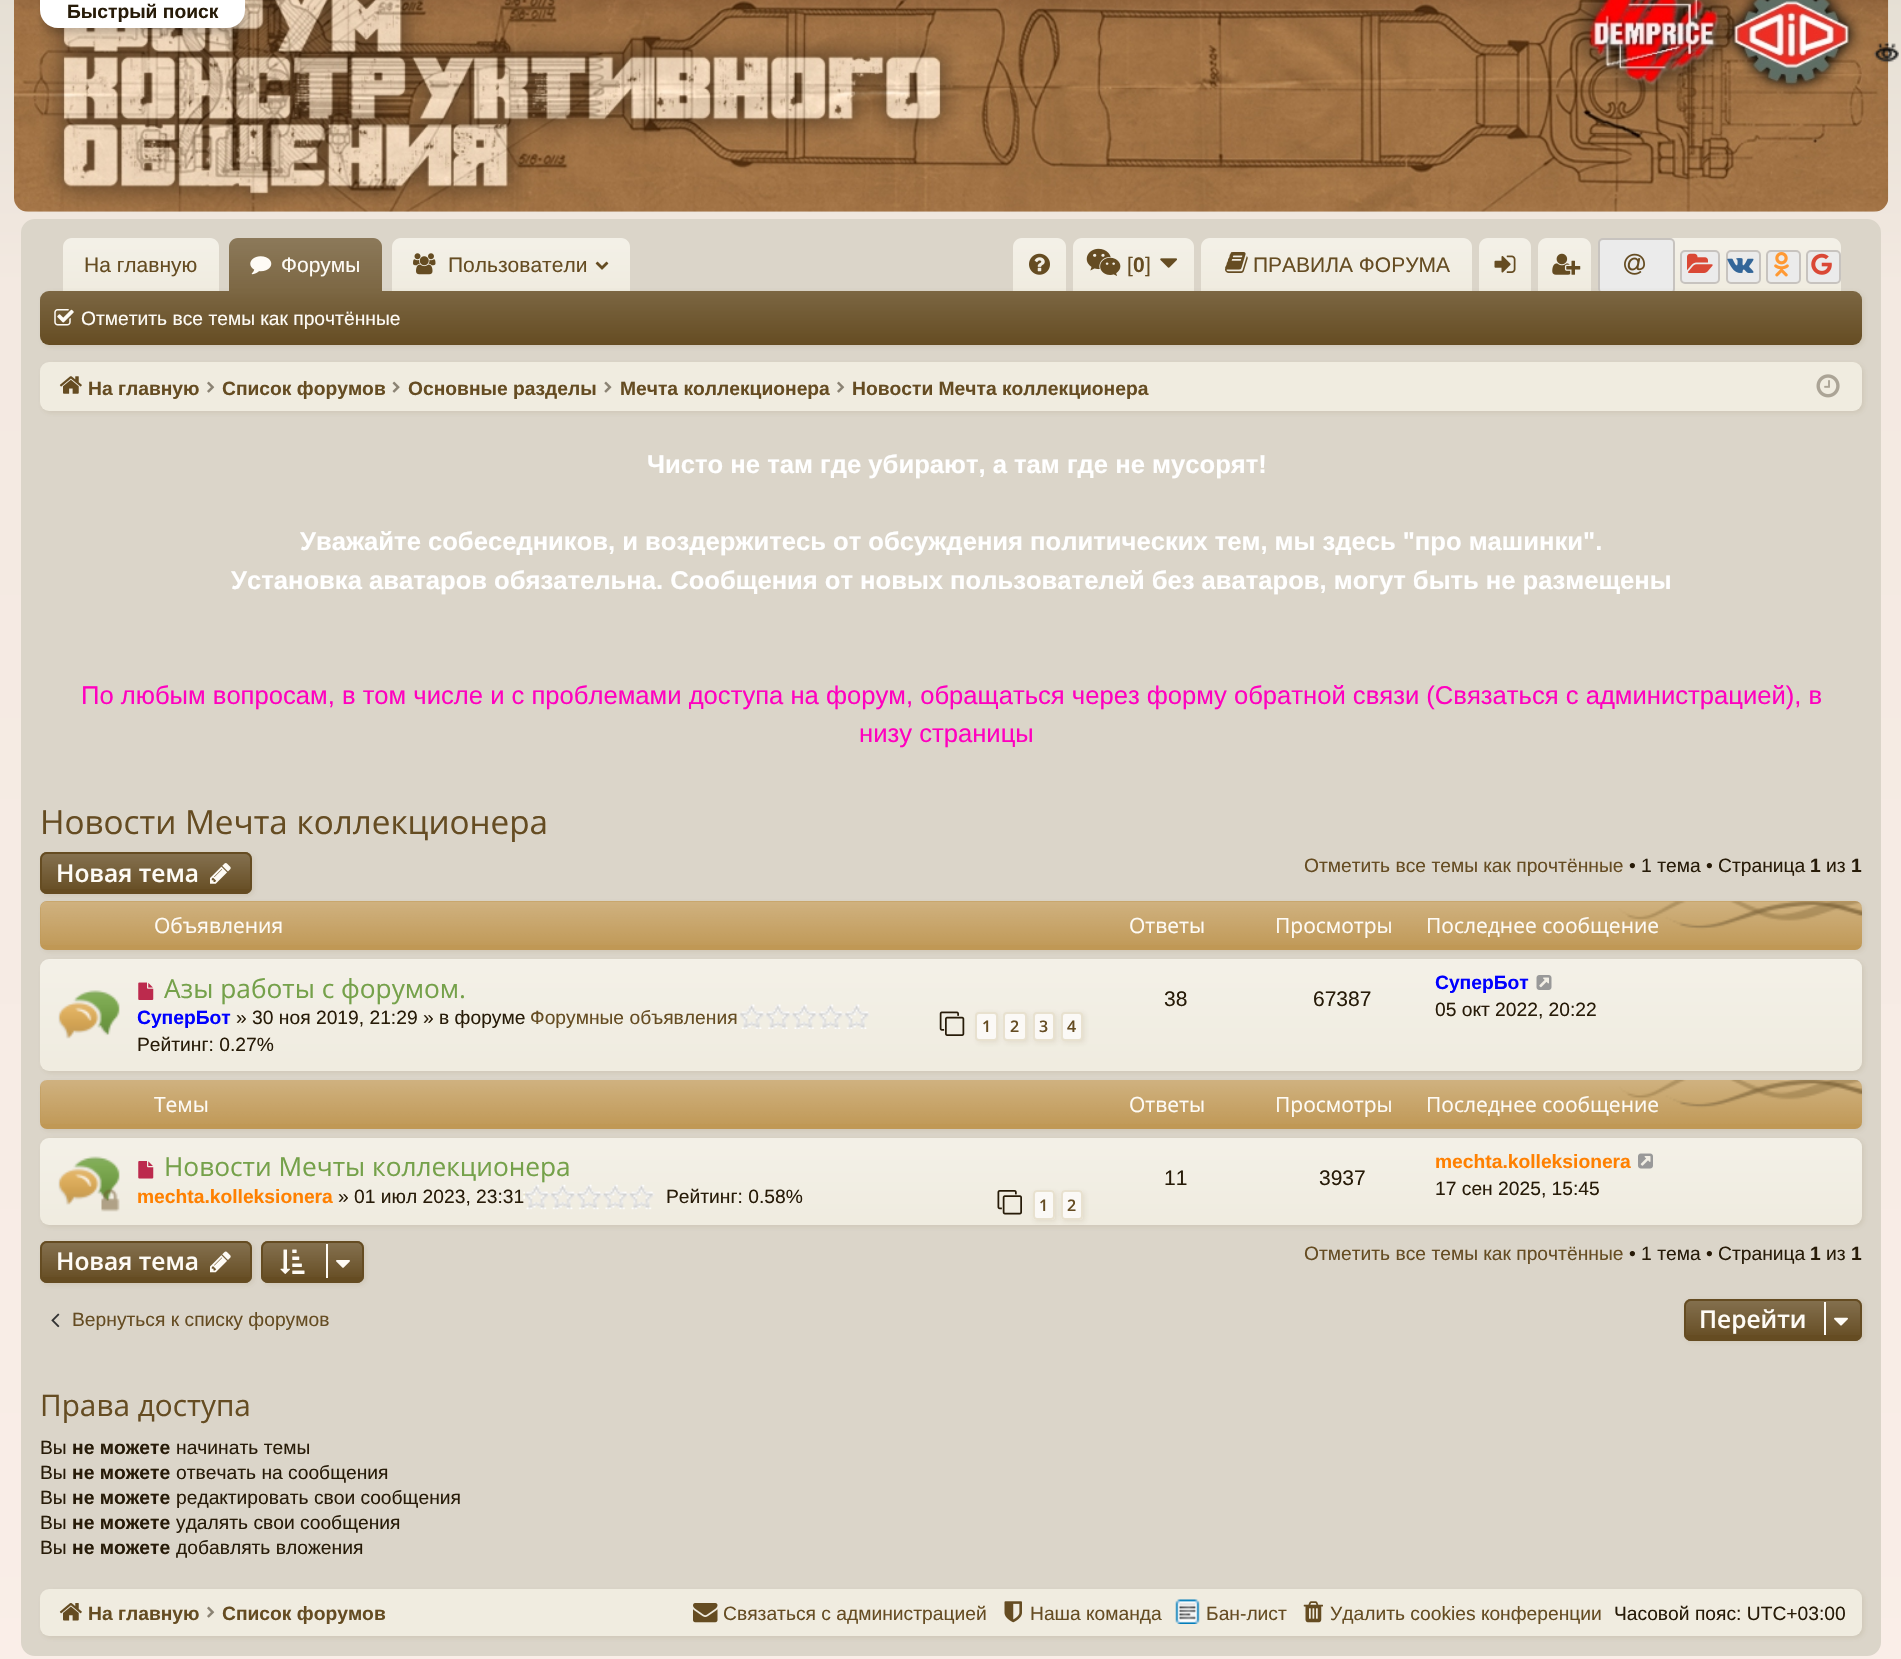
void draw(SkCanvas* canvas) {
    SkPaint paint;
    paint.setAntiAlias(true);
    auto face = [&](const char* family, int weight, float size, bool italic = false) {
        SkFontStyle style(weight, SkFontStyle::kNormal_Width,
            italic ? SkFontStyle::kItalic_Slant : SkFontStyle::kUpright_Slant);
        SkFont result(fontMgr->matchFamilyStyle(family, style), size);
        result.setSubpixel(true);
        return result;
    };
    auto write = [&](const char* s, float x, float y, const SkFont& font, SkColor color) {
        SkPaint ink(SkColor4f::FromColor(color));
        ink.setAntiAlias(true);
        canvas->drawString(s, x, y, font, ink);
    };
    auto writeSpaced = [&](const char* s, float x, float y, const SkFont& font, const SkPaint& ink, float letter, float word) {
        std::vector<SkGlyphID> glyphs(font.countText(s, strlen(s), SkTextEncoding::kUTF8));
        std::vector<float> xs(glyphs.size());
        font.textToGlyphs(s, strlen(s), SkTextEncoding::kUTF8, glyphs);
        font.getXPos(glyphs, xs, x);
        float extra = 0;
        for (size_t i = 0; i < glyphs.size(); i++) {
            xs[i] += extra;
            extra += letter + word * (glyphs[i] == font.unicharToGlyph(' '));
        }
        canvas->drawTextBlob(SkTextBlob::MakeFromPosHGlyphs(glyphs, xs, y, font), 0, 0, ink);
    };
    auto block = [&](float x, float y, float w, float h, SkColor color) {
        SkPaint ink(SkColor4f::FromColor(color));
        ink.setAntiAlias(true);
        canvas->drawRect(SkRect::MakeXYWH(x, y, w, h), ink);
    };
    auto card = [&](float x, float y, float w, float h, float radius, SkColor color) {
        SkPaint ink(SkColor4f::FromColor(color));
        ink.setAntiAlias(true);
        canvas->drawRoundRect(SkRect::MakeXYWH(x, y, w, h), radius, radius, ink);
    };
    auto paste = [&](const char* path, float x, float y, float w, float h) {
        auto image = SkImages::DeferredFromEncodedData(SkData::MakeFromFileName(path));
        canvas->drawImageRect(image, SkRect::MakeXYWH(x, y, w, h), SkSamplingOptions());
    };
    canvas->clear(SK_ColorWHITE);
    {
        const SkColor colors[] = {SkColorSetRGB(226, 221, 209), SkColorSetRGB(243, 233, 225), SkColorSetRGB(250, 238, 232)};
        const float stops[] = {0, 0.2f, 1};
        const SkPoint ends[] = {{951, -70}, {951, 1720}};
        paint.setShader(SkGradientShader::MakeLinear(ends, colors, stops, 3, SkTileMode::kClamp));
        paint.setAlpha(255);
    }
    canvas->drawRect(SkRect::MakeXYWH(0, 0, 1901, 1659), paint);
    paste("pic1.png", 14, 0, 1875, 212);
    paint.setShader(nullptr);
    paint.setColor(SkColorSetRGB(219, 213, 201));
    canvas->drawRoundRect(SkRect::MakeXYWH(22, 220, 1858, 1435), 13, 13, paint);
    paint.setStyle(SkPaint::kStroke_Style);
    paint.setStrokeWidth(2);
    canvas->drawRoundRect(SkRect::MakeXYWH(22, 220, 1858, 1435), 13, 13, paint);
    paint.setStyle(SkPaint::kFill_Style);
    paint.setColor(SkColorSetARGB(51, 0, 0, 0));
    paint.setMaskFilter(SkMaskFilter::MakeBlur(kNormal_SkBlurStyle, 4.5f));
    canvas->drawRoundRect(SkRect::MakeXYWH(42, 5, 205, 28), 18, 18, paint);
    paint.setMaskFilter(nullptr);
    paint.setColor(SK_ColorWHITE);
    canvas->drawPath(SkPathBuilder().moveTo(40, 0).lineTo(245, 0).lineTo(245, 10).cubicTo(245, 20, 237, 28, 227, 28).lineTo(58, 28).cubicTo(48, 28, 40, 20, 40, 10).close().detach(), paint);
    auto kFont1 = face("Liberation Sans", 700, 19.25f);
    write("Быстрый поиск", 67, 18, kFont1, SkColorSetRGB(39, 27, 8));
    paste("pic2.png", 1874, 42, 25, 22);
    paint.setColor(SkColorSetRGB(240, 236, 224));
    canvas->drawPath(SkPathBuilder().moveTo(72, 238).lineTo(210, 238).cubicTo(215, 238, 219, 242, 219, 247).lineTo(219, 291).lineTo(63, 291).lineTo(63, 247).cubicTo(63, 242, 67, 238, 72, 238).close().detach(), paint);
    {
        const SkColor colors[] = {SkColorSetARGB(64, 255, 255, 255), SkColorSetARGB(0, 255, 255, 255)};
        const float stops[] = {0, 1};
        const SkPoint ends[] = {{141, 238}, {141, 291}};
        paint.setShader(SkGradientShader::MakeLinear(ends, colors, stops, 2, SkTileMode::kClamp));
        paint.setAlpha(255);
    }
    canvas->drawPath(SkPathBuilder().moveTo(72, 238).lineTo(210, 238).cubicTo(215, 238, 219, 242, 219, 247).lineTo(219, 291).lineTo(63, 291).lineTo(63, 247).cubicTo(63, 242, 67, 238, 72, 238).close().detach(), paint);
    auto kFont2 = face("Liberation Sans", 400, 21);
    write("На главную", 84, 272, kFont2, SkColorSetRGB(101, 76, 34));
    paint.setShader(nullptr);
    paint.setColor(SkColorSetRGB(101, 76, 34));
    canvas->drawPath(SkPathBuilder().moveTo(238, 238).lineTo(373, 238).cubicTo(378, 238, 382, 242, 382, 247).lineTo(382, 291).lineTo(229, 291).lineTo(229, 247).cubicTo(229, 242, 233, 238, 238, 238).close().detach(), paint);
    {
        const SkColor colors[] = {SkColorSetARGB(64, 255, 255, 255), SkColorSetARGB(38, 255, 255, 255)};
        const float stops[] = {0, 1};
        const SkPoint ends[] = {{305, 238}, {305, 291}};
        paint.setShader(SkGradientShader::MakeLinear(ends, colors, stops, 2, SkTileMode::kClamp));
        paint.setAlpha(255);
    }
    canvas->drawPath(SkPathBuilder().moveTo(238, 238).lineTo(373, 238).cubicTo(378, 238, 382, 242, 382, 247).lineTo(382, 291).lineTo(229, 291).lineTo(229, 247).cubicTo(229, 242, 233, 238, 238, 238).close().detach(), paint);
    paste("pic3.png", 250, 256, 22, 19);
    write("Форумы", 281, 272, kFont2, SkColorSetRGB(254, 251, 245));
    paint.setShader(nullptr);
    paint.setColor(SkColorSetRGB(240, 236, 224));
    canvas->drawPath(SkPathBuilder().moveTo(401, 238).lineTo(621, 238).cubicTo(626, 238, 630, 242, 630, 247).lineTo(630, 291).lineTo(392, 291).lineTo(392, 247).cubicTo(392, 242, 396, 238, 401, 238).close().detach(), paint);
    {
        const SkColor colors[] = {SkColorSetARGB(64, 255, 255, 255), SkColorSetARGB(0, 255, 255, 255)};
        const float stops[] = {0, 1};
        const SkPoint ends[] = {{511, 238}, {511, 291}};
        paint.setShader(SkGradientShader::MakeLinear(ends, colors, stops, 2, SkTileMode::kClamp));
        paint.setAlpha(255);
    }
    canvas->drawPath(SkPathBuilder().moveTo(401, 238).lineTo(621, 238).cubicTo(626, 238, 630, 242, 630, 247).lineTo(630, 291).lineTo(392, 291).lineTo(392, 247).cubicTo(392, 242, 396, 238, 401, 238).close().detach(), paint);
    paint.setShader(nullptr);
    paint.setColor(SkColorSetRGB(240, 236, 224));
    canvas->drawPath(SkPathBuilder().moveTo(1022, 238).lineTo(1057, 238).cubicTo(1062, 238, 1066, 242, 1066, 247).lineTo(1066, 291).lineTo(1013, 291).lineTo(1013, 247).cubicTo(1013, 242, 1017, 238, 1022, 238).close().detach(), paint);
    {
        const SkColor colors[] = {SkColorSetARGB(64, 255, 255, 255), SkColorSetARGB(0, 255, 255, 255)};
        const float stops[] = {0, 1};
        const SkPoint ends[] = {{1040, 238}, {1040, 291}};
        paint.setShader(SkGradientShader::MakeLinear(ends, colors, stops, 2, SkTileMode::kClamp));
        paint.setAlpha(255);
    }
    canvas->drawPath(SkPathBuilder().moveTo(1022, 238).lineTo(1057, 238).cubicTo(1062, 238, 1066, 242, 1066, 247).lineTo(1066, 291).lineTo(1013, 291).lineTo(1013, 247).cubicTo(1013, 242, 1017, 238, 1022, 238).close().detach(), paint);
    paint.setShader(nullptr);
    paint.setColor(SkColorSetRGB(240, 236, 224));
    canvas->drawPath(SkPathBuilder().moveTo(1082, 238).lineTo(1185, 238).cubicTo(1190, 238, 1194, 242, 1194, 247).lineTo(1194, 291).lineTo(1073, 291).lineTo(1073, 247).cubicTo(1073, 242, 1077, 238, 1082, 238).close().detach(), paint);
    {
        const SkColor colors[] = {SkColorSetARGB(64, 255, 255, 255), SkColorSetARGB(0, 255, 255, 255)};
        const float stops[] = {0, 1};
        const SkPoint ends[] = {{1133, 238}, {1133, 291}};
        paint.setShader(SkGradientShader::MakeLinear(ends, colors, stops, 2, SkTileMode::kClamp));
        paint.setAlpha(255);
    }
    canvas->drawPath(SkPathBuilder().moveTo(1082, 238).lineTo(1185, 238).cubicTo(1190, 238, 1194, 242, 1194, 247).lineTo(1194, 291).lineTo(1073, 291).lineTo(1073, 247).cubicTo(1073, 242, 1077, 238, 1082, 238).close().detach(), paint);
    paint.setShader(nullptr);
    paint.setColor(SkColorSetRGB(240, 236, 224));
    canvas->drawPath(SkPathBuilder().moveTo(1210, 238).lineTo(1463, 238).cubicTo(1468, 238, 1472, 242, 1472, 247).lineTo(1472, 291).lineTo(1201, 291).lineTo(1201, 247).cubicTo(1201, 242, 1205, 238, 1210, 238).close().detach(), paint);
    {
        const SkColor colors[] = {SkColorSetARGB(64, 255, 255, 255), SkColorSetARGB(0, 255, 255, 255)};
        const float stops[] = {0, 1};
        const SkPoint ends[] = {{1336, 238}, {1336, 291}};
        paint.setShader(SkGradientShader::MakeLinear(ends, colors, stops, 2, SkTileMode::kClamp));
        paint.setAlpha(255);
    }
    canvas->drawPath(SkPathBuilder().moveTo(1210, 238).lineTo(1463, 238).cubicTo(1468, 238, 1472, 242, 1472, 247).lineTo(1472, 291).lineTo(1201, 291).lineTo(1201, 247).cubicTo(1201, 242, 1205, 238, 1210, 238).close().detach(), paint);
    paint.setShader(nullptr);
    paint.setColor(SkColorSetRGB(240, 236, 224));
    canvas->drawPath(SkPathBuilder().moveTo(1488, 238).lineTo(1522, 238).cubicTo(1527, 238, 1531, 242, 1531, 247).lineTo(1531, 291).lineTo(1479, 291).lineTo(1479, 247).cubicTo(1479, 242, 1483, 238, 1488, 238).close().detach(), paint);
    {
        const SkColor colors[] = {SkColorSetARGB(64, 255, 255, 255), SkColorSetARGB(0, 255, 255, 255)};
        const float stops[] = {0, 1};
        const SkPoint ends[] = {{1505, 238}, {1505, 291}};
        paint.setShader(SkGradientShader::MakeLinear(ends, colors, stops, 2, SkTileMode::kClamp));
        paint.setAlpha(255);
    }
    canvas->drawPath(SkPathBuilder().moveTo(1488, 238).lineTo(1522, 238).cubicTo(1527, 238, 1531, 242, 1531, 247).lineTo(1531, 291).lineTo(1479, 291).lineTo(1479, 247).cubicTo(1479, 242, 1483, 238, 1488, 238).close().detach(), paint);
    paint.setShader(nullptr);
    paint.setColor(SkColorSetRGB(240, 236, 224));
    canvas->drawPath(SkPathBuilder().moveTo(1547, 238).lineTo(1582, 238).cubicTo(1587, 238, 1591, 242, 1591, 247).lineTo(1591, 291).lineTo(1538, 291).lineTo(1538, 247).cubicTo(1538, 242, 1542, 238, 1547, 238).close().detach(), paint);
    {
        const SkColor colors[] = {SkColorSetARGB(64, 255, 255, 255), SkColorSetARGB(0, 255, 255, 255)};
        const float stops[] = {0, 1};
        const SkPoint ends[] = {{1565, 238}, {1565, 291}};
        paint.setShader(SkGradientShader::MakeLinear(ends, colors, stops, 2, SkTileMode::kClamp));
        paint.setAlpha(255);
    }
    canvas->drawPath(SkPathBuilder().moveTo(1547, 238).lineTo(1582, 238).cubicTo(1587, 238, 1591, 242, 1591, 247).lineTo(1591, 291).lineTo(1538, 291).lineTo(1538, 247).cubicTo(1538, 242, 1542, 238, 1547, 238).close().detach(), paint);
    paint.setShader(nullptr);
    paint.setColor(SkColorSetRGB(240, 236, 224));
    canvas->drawPath(SkPathBuilder().moveTo(1607, 238).lineTo(1832, 238).cubicTo(1837, 238, 1841, 242, 1841, 247).lineTo(1841, 291).lineTo(1598, 291).lineTo(1598, 247).cubicTo(1598, 242, 1602, 238, 1607, 238).close().detach(), paint);
    {
        const SkColor colors[] = {SkColorSetARGB(64, 255, 255, 255), SkColorSetARGB(0, 255, 255, 255)};
        const float stops[] = {0, 1};
        const SkPoint ends[] = {{1719, 238}, {1719, 291}};
        paint.setShader(SkGradientShader::MakeLinear(ends, colors, stops, 2, SkTileMode::kClamp));
        paint.setAlpha(255);
    }
    canvas->drawPath(SkPathBuilder().moveTo(1607, 238).lineTo(1832, 238).cubicTo(1837, 238, 1841, 242, 1841, 247).lineTo(1841, 291).lineTo(1598, 291).lineTo(1598, 247).cubicTo(1598, 242, 1602, 238, 1607, 238).close().detach(), paint);
    paint.setShader(nullptr);
    paint.setColor(SkColorSetRGB(235, 235, 235));
    canvas->drawRoundRect(SkRect::MakeXYWH(1599, 239, 75, 54), 4, 4, paint);
    paint.setStyle(SkPaint::kStroke_Style);
    paint.setColor(SkColorSetRGB(199, 195, 191));
    canvas->drawRoundRect(SkRect::MakeXYWH(1599, 239, 75, 54), 4, 4, paint);
    paint.setStyle(SkPaint::kFill_Style);
    paint.setColor(SkColorSetRGB(235, 235, 235));
    canvas->drawRoundRect(SkRect::MakeXYWH(1681, 251, 38, 32), 4, 4, paint);
    paint.setStyle(SkPaint::kStroke_Style);
    paint.setColor(SkColorSetRGB(199, 195, 191));
    canvas->drawRoundRect(SkRect::MakeXYWH(1681, 251, 38, 32), 4, 4, paint);
    paint.setStyle(SkPaint::kFill_Style);
    paint.setColor(SkColorSetRGB(235, 235, 235));
    canvas->drawRoundRect(SkRect::MakeXYWH(1727, 251, 33, 32), 4, 4, paint);
    paint.setStyle(SkPaint::kStroke_Style);
    paint.setColor(SkColorSetRGB(199, 195, 191));
    canvas->drawRoundRect(SkRect::MakeXYWH(1727, 251, 33, 32), 4, 4, paint);
    paint.setStyle(SkPaint::kFill_Style);
    paint.setColor(SkColorSetRGB(235, 235, 235));
    canvas->drawRoundRect(SkRect::MakeXYWH(1767, 251, 33, 32), 4, 4, paint);
    paint.setStyle(SkPaint::kStroke_Style);
    paint.setColor(SkColorSetRGB(199, 195, 191));
    canvas->drawRoundRect(SkRect::MakeXYWH(1767, 251, 33, 32), 4, 4, paint);
    paint.setStyle(SkPaint::kFill_Style);
    paint.setColor(SkColorSetRGB(235, 235, 235));
    canvas->drawRoundRect(SkRect::MakeXYWH(1807, 251, 33, 32), 4, 4, paint);
    paint.setStyle(SkPaint::kStroke_Style);
    paint.setColor(SkColorSetRGB(199, 195, 191));
    canvas->drawRoundRect(SkRect::MakeXYWH(1807, 251, 33, 32), 4, 4, paint);
    paint.setStyle(SkPaint::kFill_Style);
    paint.setColor(SkColorSetARGB(26, 101, 76, 34));
    paint.setMaskFilter(SkMaskFilter::MakeBlur(kNormal_SkBlurStyle, 2.5f));
    canvas->drawRoundRect(SkRect::MakeXYWH(42, 292, 1822, 55), 9, 9, paint);
    paint.setMaskFilter(nullptr);
    card(40, 291, 1822, 54, 9, SkColorSetRGB(101, 76, 34));
    {
        const SkColor colors[] = {SkColorSetARGB(38, 255, 255, 255), SkColorSetARGB(0, 255, 255, 255)};
        const float stops[] = {0, 1};
        const SkPoint ends[] = {{951, 290}, {951, 345}};
        paint.setShader(SkGradientShader::MakeLinear(ends, colors, stops, 2, SkTileMode::kClamp));
        paint.setAlpha(255);
    }
    canvas->drawRoundRect(SkRect::MakeXYWH(40, 291, 1822, 54), 9, 9, paint);
    paint.setShader(nullptr);
    paint.setColor(SkColorSetRGB(101, 76, 34));
    canvas->drawPath(SkPathBuilder().moveTo(233, 289).lineTo(378, 289).cubicTo(380, 289, 382, 291, 382, 293).lineTo(229, 293).cubicTo(229, 291, 231, 289, 233, 289).close().detach(), paint);
    paint.setColor(SkColorSetARGB(38, 255, 255, 255));
    canvas->drawPath(SkPathBuilder().moveTo(233, 289).lineTo(378, 289).cubicTo(380, 289, 382, 291, 382, 293).lineTo(229, 293).cubicTo(229, 291, 231, 289, 233, 289).close().detach(), paint);
    paste("pic4.png", 413, 253, 23, 22);
    write("Пользователи", 448, 272, kFont2, SkColorSetRGB(101, 76, 34));
    paste("pic5.png", 595, 261, 14, 9);
    paste("pic6.png", 1029, 253, 21, 22);
    paste("pic7.png", 1086, 248, 35, 28);
    write("[", 1127, 272, kFont2, SkColorSetRGB(101, 76, 34));
    auto kFont3 = face("Liberation Sans", 700, 21);
    write("0", 1133, 272, kFont3, SkColorSetRGB(101, 76, 34));
    write("]", 1145, 272, kFont2, SkColorSetRGB(101, 76, 34));
    paste("pic8.png", 1160, 258, 17, 10);
    paste("pic9.png", 1225, 252, 23, 21);
    write("ПРАВИЛА ФОРУМА", 1253, 272, kFont2, SkColorSetRGB(101, 76, 34));
    paste("pic10.png", 1494, 255, 22, 18);
    paste("pic11.png", 1552, 253, 29, 22);
    paste("pic12.png", 1624, 253, 21, 22);
    paste("pic13.png", 1687, 253, 26, 20);
    paste("pic14.png", 1727, 258, 27, 15);
    paste("pic15.png", 1774, 252, 15, 25);
    paste("pic16.png", 1811, 253, 21, 22);
    paste("pic17.png", 54, 309, 20, 17);
    auto kFont4 = face("Liberation Sans", 400, 19.25f);
    write("Отметить все темы как прочтённые", 81, 325, kFont4, SkColorSetRGB(254, 251, 245));
    paint.setColor(SkColorSetARGB(26, 101, 76, 34));
    paint.setMaskFilter(SkMaskFilter::MakeBlur(kNormal_SkBlurStyle, 2.5f));
    canvas->drawRoundRect(SkRect::MakeXYWH(42, 364, 1822, 49), 9, 9, paint);
    paint.setMaskFilter(nullptr);
    card(40, 362, 1822, 49, 9, SkColorSetRGB(240, 236, 224));
    paste("pic18.png", 59, 376, 23, 18);
    write("На главную", 88, 395, kFont1, SkColorSetRGB(101, 76, 34));
    paste("pic19.png", 207, 381, 8, 12);
    write("Список форумов", 222, 395, kFont1, SkColorSetRGB(101, 76, 34));
    paste("pic20.png", 392, 381, 8, 12);
    write("Основные разделы", 408, 395, kFont1, SkColorSetRGB(101, 76, 34));
    paste("pic21.png", 604, 381, 8, 12);
    write("Мечта коллекционера", 620, 395, kFont1, SkColorSetRGB(101, 76, 34));
    paste("pic19.png", 837, 381, 8, 12);
    write("Новости Мечта коллекционера", 852, 395, kFont1, SkColorSetRGB(101, 76, 34));
    paste("pic22.png", 1816, 374, 24, 24);
    auto kFont5 = face("Liberation Sans", 700, 25.62f);
    write("Чисто не там где убирают, а там где не мусорят!", 647, 473, kFont5, SK_ColorWHITE);
    paint.setColor(SK_ColorWHITE);
    writeSpaced("Уважайте собеседников, и воздержитесь от обсуждения политических тем, мы здесь \"про машинки\".", 300, 550, kFont5, paint, 0, -0.1f);
    writeSpaced("Установка аватаров обязательна. Сообщения от новых пользователей без аватаров, могут быть не размещены", 231, 589, kFont5, paint, 0, -0.1f);
    auto kFont6 = face("Liberation Sans", 400, 25.62f);
    write("По любым вопросам, в том числе и с проблемами доступа на форум, обращаться через форму обратной связи (Связаться с администрацией), в", 81, 704, kFont6, SkColorSetRGB(255, 0, 191));
    write("низу страницы", 859, 742, kFont6, SkColorSetRGB(255, 0, 191));
    auto kFont7 = face("Open Sans", 400, 33.25f);
    write("Новости Мечта коллекционера", 40, 834, kFont7, SkColorSetRGB(101, 76, 34));
    paint.setColor(SkColorSetARGB(26, 101, 76, 34));
    paint.setMaskFilter(SkMaskFilter::MakeBlur(kNormal_SkBlurStyle, 2.5f));
    canvas->drawRoundRect(SkRect::MakeXYWH(42, 854, 212, 42), 7, 7, paint);
    paint.setMaskFilter(nullptr);
    card(40, 852, 212, 42, 7, SkColorSetRGB(101, 76, 34));
    canvas->save();
    canvas->clipPath(SkPathBuilder().moveTo(47, 852).lineTo(245, 852).cubicTo(249, 852, 252, 855, 252, 859).lineTo(252, 887).cubicTo(252, 891, 249, 894, 245, 894).lineTo(47, 894).cubicTo(43, 894, 40, 891, 40, 887).lineTo(40, 859).cubicTo(40, 855, 43, 852, 47, 852).close().detach(), true);
    {
        const SkColor colors[] = {SkColorSetARGB(51, 255, 255, 255), SkColorSetARGB(0, 255, 255, 255)};
        const float stops[] = {0, 1};
        const SkPoint ends[] = {{146, 854}, {146, 893}};
        paint.setShader(SkGradientShader::MakeLinear(ends, colors, stops, 2, SkTileMode::kClamp));
        paint.setAlpha(255);
    }
    canvas->drawRect(SkRect::MakeXYWH(40, 854, 212, 35), paint);
    canvas->restore();
    paint.setStyle(SkPaint::kStroke_Style);
    paint.setShader(nullptr);
    paint.setColor(SkColorSetRGB(101, 76, 34));
    canvas->drawRoundRect(SkRect::MakeXYWH(41, 853, 210, 40), 6, 6, paint);
    auto kFont8 = face("Open Sans", 600, 24.5f);
    write("Новая тема", 56, 882, kFont8, SkColorSetRGB(254, 251, 245));
    paste("pic23.png", 210, 863, 21, 21);
    write("Отметить все темы как прочтённые", 1304, 872, kFont4, SkColorSetRGB(101, 76, 34));
    write("• 1 тема • Страница", 1629, 872, kFont4, SkColorSetRGB(39, 27, 8));
    write("1", 1810, 872, kFont1, SkColorSetRGB(39, 27, 8));
    write("из", 1826, 872, kFont4, SkColorSetRGB(39, 27, 8));
    write("1", 1851, 872, kFont1, SkColorSetRGB(39, 27, 8));
    paint.setStyle(SkPaint::kFill_Style);
    paint.setColor(SkColorSetARGB(26, 101, 76, 34));
    paint.setMaskFilter(SkMaskFilter::MakeBlur(kNormal_SkBlurStyle, 2.5f));
    canvas->drawRoundRect(SkRect::MakeXYWH(42, 961, 1822, 112), 9, 9, paint);
    paint.setMaskFilter(nullptr);
    card(40, 959, 1822, 112, 9, SkColorSetRGB(240, 236, 224));
    {
        const SkColor colors[] = {SkColorSetARGB(64, 255, 255, 255), SkColorSetARGB(0, 255, 255, 255)};
        const float stops[] = {0, 1};
        const SkPoint ends[] = {{951, 959}, {951, 1071}};
        paint.setShader(SkGradientShader::MakeLinear(ends, colors, stops, 2, SkTileMode::kClamp));
        paint.setAlpha(255);
    }
    canvas->drawRoundRect(SkRect::MakeXYWH(40, 959, 1822, 112), 9, 9, paint);
    paint.setShader(nullptr);
    paint.setColor(SkColorSetARGB(26, 101, 76, 34));
    paint.setMaskFilter(SkMaskFilter::MakeBlur(kNormal_SkBlurStyle, 2.5f));
    canvas->drawRoundRect(SkRect::MakeXYWH(42, 903, 1822, 49), 7, 7, paint);
    paint.setMaskFilter(nullptr);
    card(40, 901, 1822, 49, 7, SkColorSetRGB(192, 152, 85));
    paste("pic24.png", 40, 901, 1822, 44);
    auto kFont9 = face("Open Sans", 400, 21);
    write("Объявления", 154, 933, kFont9, SkColorSetRGB(254, 251, 245));
    write("Ответы", 1129, 933, kFont9, SkColorSetRGB(254, 251, 245));
    write("Просмотры", 1275, 933, kFont9, SkColorSetRGB(254, 251, 245));
    write("Последнее сообщение", 1426, 933, kFont9, SkColorSetRGB(254, 251, 245));
    paste("pic25.png", 58, 990, 62, 49);
    paste("pic26.png", 138, 982, 16, 18);
    auto kFont10 = face("Open Sans", 400, 26.25f);
    write("Азы работы с форумом.", 164, 998, kFont10, SkColorSetRGB(117, 161, 74));
    write("СуперБот", 137, 1024, kFont1, SkColorSetRGB(0, 0, 255));
    write("» 30 ноя 2019, 21:29 » в форуме", 236, 1024, kFont4, SkColorSetRGB(39, 27, 8));
    write("Форумные объявления", 530, 1024, kFont4, SkColorSetRGB(101, 76, 34));
    paste("pic27.png", 939, 1011, 26, 25);
    paint.setMaskFilter(SkMaskFilter::MakeBlur(kNormal_SkBlurStyle, 2.5f));
    canvas->drawRoundRect(SkRect::MakeXYWH(977, 1013, 22, 30), 4, 4, paint);
    paint.setMaskFilter(nullptr);
    paint.setColor(SkColorSetRGB(251, 249, 246));
    canvas->drawRoundRect(SkRect::MakeXYWH(976, 1013, 21, 27), 3, 3, paint);
    paint.setStyle(SkPaint::kStroke_Style);
    paint.setColor(SkColorSetRGB(232, 225, 207));
    canvas->drawRoundRect(SkRect::MakeXYWH(976, 1013, 21, 27), 3, 3, paint);
    auto kFont11 = face("Open Sans", 600, 16);
    write("1", 982, 1032, kFont11, SkColorSetRGB(101, 76, 34));
    paint.setStyle(SkPaint::kFill_Style);
    paint.setColor(SkColorSetARGB(26, 101, 76, 34));
    paint.setMaskFilter(SkMaskFilter::MakeBlur(kNormal_SkBlurStyle, 2.5f));
    canvas->drawRoundRect(SkRect::MakeXYWH(1005, 1013, 24, 30), 4, 4, paint);
    paint.setMaskFilter(nullptr);
    paint.setColor(SkColorSetRGB(251, 249, 246));
    canvas->drawRoundRect(SkRect::MakeXYWH(1004, 1013, 22, 27), 3, 3, paint);
    paint.setStyle(SkPaint::kStroke_Style);
    paint.setColor(SkColorSetRGB(232, 225, 207));
    canvas->drawRoundRect(SkRect::MakeXYWH(1004, 1013, 22, 27), 3, 3, paint);
    write("2", 1010, 1032, kFont11, SkColorSetRGB(101, 76, 34));
    paint.setStyle(SkPaint::kFill_Style);
    paint.setColor(SkColorSetARGB(26, 101, 76, 34));
    paint.setMaskFilter(SkMaskFilter::MakeBlur(kNormal_SkBlurStyle, 2.5f));
    canvas->drawRoundRect(SkRect::MakeXYWH(1034, 1013, 23, 30), 4, 4, paint);
    paint.setMaskFilter(nullptr);
    paint.setColor(SkColorSetRGB(251, 249, 246));
    canvas->drawRoundRect(SkRect::MakeXYWH(1034, 1013, 20, 27), 3, 3, paint);
    paint.setStyle(SkPaint::kStroke_Style);
    paint.setColor(SkColorSetRGB(232, 225, 207));
    canvas->drawRoundRect(SkRect::MakeXYWH(1034, 1013, 20, 27), 3, 3, paint);
    write("3", 1039, 1032, kFont11, SkColorSetRGB(101, 76, 34));
    paint.setStyle(SkPaint::kFill_Style);
    paint.setColor(SkColorSetARGB(26, 101, 76, 34));
    paint.setMaskFilter(SkMaskFilter::MakeBlur(kNormal_SkBlurStyle, 2.5f));
    canvas->drawRoundRect(SkRect::MakeXYWH(1062, 1013, 23, 30), 4, 4, paint);
    paint.setMaskFilter(nullptr);
    paint.setColor(SkColorSetRGB(251, 249, 246));
    canvas->drawRoundRect(SkRect::MakeXYWH(1062, 1013, 20, 27), 3, 3, paint);
    paint.setStyle(SkPaint::kStroke_Style);
    paint.setColor(SkColorSetRGB(232, 225, 207));
    canvas->drawRoundRect(SkRect::MakeXYWH(1062, 1013, 20, 27), 3, 3, paint);
    write("4", 1067, 1032, kFont11, SkColorSetRGB(101, 76, 34));
    paste("pic28.png", 738, 1004, 132, 25);
    write("Рейтинг: 0.27%", 137, 1051, kFont4, SkColorSetRGB(39, 27, 8));
    write("38", 1164, 1006, kFont2, SkColorSetRGB(39, 27, 8));
    write("67387", 1313, 1006, kFont2, SkColorSetRGB(39, 27, 8));
    write("СуперБот", 1435, 989, kFont1, SkColorSetRGB(0, 0, 255));
    paste("pic29.png", 1536, 975, 16, 15);
    write("05 окт 2022, 20:22", 1435, 1016, kFont4, SkColorSetRGB(39, 27, 8));
    paint.setStyle(SkPaint::kFill_Style);
    paint.setColor(SkColorSetARGB(26, 101, 76, 34));
    paint.setMaskFilter(SkMaskFilter::MakeBlur(kNormal_SkBlurStyle, 2.5f));
    canvas->drawRoundRect(SkRect::MakeXYWH(42, 1139, 1822, 88), 9, 9, paint);
    paint.setMaskFilter(nullptr);
    card(40, 1138, 1822, 87, 9, SkColorSetRGB(240, 236, 224));
    {
        const SkColor colors[] = {SkColorSetARGB(64, 255, 255, 255), SkColorSetARGB(0, 255, 255, 255)};
        const float stops[] = {0, 1};
        const SkPoint ends[] = {{951, 1137}, {951, 1225}};
        paint.setShader(SkGradientShader::MakeLinear(ends, colors, stops, 2, SkTileMode::kClamp));
        paint.setAlpha(255);
    }
    canvas->drawRoundRect(SkRect::MakeXYWH(40, 1138, 1822, 87), 9, 9, paint);
    paint.setShader(nullptr);
    paint.setColor(SkColorSetARGB(26, 101, 76, 34));
    paint.setMaskFilter(SkMaskFilter::MakeBlur(kNormal_SkBlurStyle, 2.5f));
    canvas->drawRoundRect(SkRect::MakeXYWH(42, 1082, 1822, 49), 7, 7, paint);
    paint.setMaskFilter(nullptr);
    card(40, 1080, 1822, 49, 7, SkColorSetRGB(192, 152, 85));
    paste("pic30.png", 40, 1079, 1822, 45);
    write("Темы", 154, 1112, kFont9, SkColorSetRGB(254, 251, 245));
    write("Ответы", 1129, 1112, kFont9, SkColorSetRGB(254, 251, 245));
    write("Просмотры", 1275, 1112, kFont9, SkColorSetRGB(254, 251, 245));
    write("Последнее сообщение", 1426, 1112, kFont9, SkColorSetRGB(254, 251, 245));
    paste("pic31.png", 58, 1156, 62, 56);
    paste("pic32.png", 138, 1161, 16, 18);
    write("Новости Мечты коллекционера", 164, 1176, kFont10, SkColorSetRGB(117, 161, 74));
    write("mechta.kolleksionera", 137, 1203, kFont1, SkColorSetRGB(255, 128, 0));
    write("» 01 июл 2023, 23:31", 338, 1203, kFont4, SkColorSetRGB(39, 27, 8));
    paste("pic33.png", 523, 1184, 132, 26);
    paste("pic34.png", 523, 1191, 2, 8);
    write("Рейтинг: 0.58%", 666, 1203, kFont4, SkColorSetRGB(39, 27, 8));
    paste("pic35.png", 997, 1190, 25, 25);
    paint.setMaskFilter(SkMaskFilter::MakeBlur(kNormal_SkBlurStyle, 2.5f));
    canvas->drawRoundRect(SkRect::MakeXYWH(1034, 1192, 23, 30), 4, 4, paint);
    paint.setMaskFilter(nullptr);
    card(1033, 1190, 22, 30, 4, SkColorSetRGB(251, 249, 246));
    {
        const SkColor colors[] = {SkColorSetARGB(51, 255, 255, 255), SkColorSetARGB(0, 255, 255, 255)};
        const float stops[] = {0, 1};
        const SkPoint ends[] = {{1044, 1192}, {1044, 1218}};
        paint.setShader(SkGradientShader::MakeLinear(ends, colors, stops, 2, SkTileMode::kClamp));
        paint.setAlpha(255);
    }
    canvas->drawRect(SkRect::MakeXYWH(1033, 1192, 22, 1), paint);
    paint.setStyle(SkPaint::kStroke_Style);
    paint.setShader(nullptr);
    paint.setColor(SkColorSetRGB(232, 225, 207));
    canvas->drawRoundRect(SkRect::MakeXYWH(1034, 1191, 20, 28), 3, 3, paint);
    write("1", 1039, 1211, kFont11, SkColorSetRGB(101, 76, 34));
    paint.setStyle(SkPaint::kFill_Style);
    paint.setColor(SkColorSetARGB(26, 101, 76, 34));
    paint.setMaskFilter(SkMaskFilter::MakeBlur(kNormal_SkBlurStyle, 2.5f));
    canvas->drawRoundRect(SkRect::MakeXYWH(1062, 1192, 23, 30), 4, 4, paint);
    paint.setMaskFilter(nullptr);
    card(1061, 1190, 22, 30, 4, SkColorSetRGB(251, 249, 246));
    {
        const SkColor colors[] = {SkColorSetARGB(51, 255, 255, 255), SkColorSetARGB(0, 255, 255, 255)};
        const float stops[] = {0, 1};
        const SkPoint ends[] = {{1072, 1192}, {1072, 1218}};
        paint.setShader(SkGradientShader::MakeLinear(ends, colors, stops, 2, SkTileMode::kClamp));
        paint.setAlpha(255);
    }
    canvas->drawRect(SkRect::MakeXYWH(1061, 1192, 22, 1), paint);
    paint.setStyle(SkPaint::kStroke_Style);
    paint.setShader(nullptr);
    paint.setColor(SkColorSetRGB(232, 225, 207));
    canvas->drawRoundRect(SkRect::MakeXYWH(1062, 1191, 20, 28), 3, 3, paint);
    write("2", 1067, 1211, kFont11, SkColorSetRGB(101, 76, 34));
    write("11", 1164, 1185, kFont2, SkColorSetRGB(39, 27, 8));
    write("3937", 1319, 1185, kFont2, SkColorSetRGB(39, 27, 8));
    write("mechta.kolleksionera", 1435, 1168, kFont1, SkColorSetRGB(255, 128, 0));
    paste("pic36.png", 1638, 1153, 15, 16);
    write("17 сен 2025, 15:45", 1435, 1195, kFont4, SkColorSetRGB(39, 27, 8));
    paint.setStyle(SkPaint::kFill_Style);
    paint.setColor(SkColorSetARGB(26, 101, 76, 34));
    paint.setMaskFilter(SkMaskFilter::MakeBlur(kNormal_SkBlurStyle, 2.5f));
    canvas->drawRoundRect(SkRect::MakeXYWH(42, 1243, 212, 42), 7, 7, paint);
    paint.setMaskFilter(nullptr);
    card(40, 1241, 212, 42, 7, SkColorSetRGB(101, 76, 34));
    canvas->save();
    canvas->clipPath(SkPathBuilder().moveTo(47, 1241).lineTo(245, 1241).cubicTo(249, 1241, 252, 1244, 252, 1248).lineTo(252, 1276).cubicTo(252, 1280, 249, 1283, 245, 1283).lineTo(47, 1283).cubicTo(43, 1283, 40, 1280, 40, 1276).lineTo(40, 1248).cubicTo(40, 1244, 43, 1241, 47, 1241).close().detach(), true);
    {
        const SkColor colors[] = {SkColorSetARGB(51, 255, 255, 255), SkColorSetARGB(0, 255, 255, 255)};
        const float stops[] = {0, 1};
        const SkPoint ends[] = {{146, 1243}, {146, 1281}};
        paint.setShader(SkGradientShader::MakeLinear(ends, colors, stops, 2, SkTileMode::kClamp));
        paint.setAlpha(255);
    }
    canvas->drawRect(SkRect::MakeXYWH(40, 1243, 212, 34), paint);
    canvas->restore();
    paint.setStyle(SkPaint::kStroke_Style);
    paint.setShader(nullptr);
    paint.setColor(SkColorSetRGB(101, 76, 34));
    canvas->drawRoundRect(SkRect::MakeXYWH(41, 1242, 210, 40), 6, 6, paint);
    write("Новая тема", 56, 1270, kFont8, SkColorSetRGB(254, 251, 245));
    paste("pic37.png", 210, 1251, 21, 22);
    paint.setStyle(SkPaint::kFill_Style);
    paint.setColor(SkColorSetARGB(26, 101, 76, 34));
    paint.setMaskFilter(SkMaskFilter::MakeBlur(kNormal_SkBlurStyle, 2.5f));
    canvas->drawRoundRect(SkRect::MakeXYWH(263, 1243, 103, 42), 7, 7, paint);
    paint.setMaskFilter(nullptr);
    card(261, 1241, 103, 42, 7, SkColorSetRGB(101, 76, 34));
    canvas->save();
    canvas->clipPath(SkPathBuilder().moveTo(268, 1241).lineTo(357, 1241).cubicTo(361, 1241, 364, 1244, 364, 1248).lineTo(364, 1276).cubicTo(364, 1280, 361, 1283, 357, 1283).lineTo(268, 1283).cubicTo(264, 1283, 261, 1280, 261, 1276).lineTo(261, 1248).cubicTo(261, 1244, 264, 1241, 268, 1241).close().detach(), true);
    {
        const SkColor colors[] = {SkColorSetARGB(51, 255, 255, 255), SkColorSetARGB(0, 255, 255, 255)};
        const float stops[] = {0, 1};
        const SkPoint ends[] = {{312, 1243}, {312, 1281}};
        paint.setShader(SkGradientShader::MakeLinear(ends, colors, stops, 2, SkTileMode::kClamp));
        paint.setAlpha(255);
    }
    canvas->drawRect(SkRect::MakeXYWH(261, 1243, 103, 34), paint);
    canvas->restore();
    paint.setStyle(SkPaint::kStroke_Style);
    paint.setShader(nullptr);
    paint.setColor(SkColorSetRGB(101, 76, 34));
    canvas->drawRoundRect(SkRect::MakeXYWH(262, 1242, 101, 40), 6, 6, paint);
    paste("pic38.png", 280, 1249, 25, 25);
    block(326, 1244, 2, 34, SkColorSetRGB(254, 251, 245));
    paste("pic39.png", 336, 1260, 14, 8);
    write("Отметить все темы как прочтённые", 1304, 1260, kFont4, SkColorSetRGB(101, 76, 34));
    write("• 1 тема • Страница", 1629, 1260, kFont4, SkColorSetRGB(39, 27, 8));
    write("1", 1810, 1260, kFont1, SkColorSetRGB(39, 27, 8));
    write("из", 1826, 1260, kFont4, SkColorSetRGB(39, 27, 8));
    write("1", 1851, 1260, kFont1, SkColorSetRGB(39, 27, 8));
    paste("pic40.png", 51, 1313, 9, 15);
    write("Вернуться к списку форумов", 72, 1326, kFont4, SkColorSetRGB(101, 76, 34));
    paint.setStyle(SkPaint::kFill_Style);
    paint.setColor(SkColorSetARGB(26, 101, 76, 34));
    paint.setMaskFilter(SkMaskFilter::MakeBlur(kNormal_SkBlurStyle, 2.5f));
    canvas->drawRoundRect(SkRect::MakeXYWH(1685, 1300, 179, 42), 7, 7, paint);
    paint.setMaskFilter(nullptr);
    card(1684, 1299, 178, 42, 7, SkColorSetRGB(101, 76, 34));
    canvas->save();
    canvas->clipPath(SkPathBuilder().moveTo(1691, 1299).lineTo(1855, 1299).cubicTo(1859, 1299, 1862, 1302, 1862, 1306).lineTo(1862, 1334).cubicTo(1862, 1338, 1859, 1341, 1855, 1341).lineTo(1691, 1341).cubicTo(1687, 1341, 1684, 1338, 1684, 1334).lineTo(1684, 1306).cubicTo(1684, 1302, 1687, 1299, 1691, 1299).close().detach(), true);
    {
        const SkColor colors[] = {SkColorSetARGB(51, 255, 255, 255), SkColorSetARGB(0, 255, 255, 255)};
        const float stops[] = {0, 1};
        const SkPoint ends[] = {{1773, 1300}, {1773, 1339}};
        paint.setShader(SkGradientShader::MakeLinear(ends, colors, stops, 2, SkTileMode::kClamp));
        paint.setAlpha(255);
    }
    canvas->drawRect(SkRect::MakeXYWH(1684, 1300, 178, 35), paint);
    canvas->restore();
    paint.setStyle(SkPaint::kStroke_Style);
    paint.setShader(nullptr);
    paint.setColor(SkColorSetRGB(101, 76, 34));
    canvas->drawRoundRect(SkRect::MakeXYWH(1685, 1300, 176, 40), 6, 6, paint);
    write("Перейти", 1699, 1328, kFont8, SkColorSetRGB(254, 251, 245));
    block(1824, 1302, 2, 33, SkColorSetRGB(254, 251, 245));
    paste("pic41.png", 1834, 1317, 14, 9);
    auto kFont12 = face("Open Sans", 400, 29.75f);
    write("Права доступа", 40, 1416, kFont12, SkColorSetRGB(101, 76, 34));
    write("Вы", 40, 1454, kFont4, SkColorSetRGB(39, 27, 8));
    write("не можете", 72, 1454, kFont1, SkColorSetRGB(39, 27, 8));
    write("начинать темы", 176, 1454, kFont4, SkColorSetRGB(39, 27, 8));
    write("Вы", 40, 1479, kFont4, SkColorSetRGB(39, 27, 8));
    write("не можете", 72, 1479, kFont1, SkColorSetRGB(39, 27, 8));
    write("отвечать на сообщения", 176, 1479, kFont4, SkColorSetRGB(39, 27, 8));
    write("Вы", 40, 1504, kFont4, SkColorSetRGB(39, 27, 8));
    write("не можете", 72, 1504, kFont1, SkColorSetRGB(39, 27, 8));
    write("редактировать свои сообщения", 176, 1504, kFont4, SkColorSetRGB(39, 27, 8));
    write("Вы", 40, 1529, kFont4, SkColorSetRGB(39, 27, 8));
    write("не можете", 72, 1529, kFont1, SkColorSetRGB(39, 27, 8));
    write("удалять свои сообщения", 176, 1529, kFont4, SkColorSetRGB(39, 27, 8));
    write("Вы", 40, 1554, kFont4, SkColorSetRGB(39, 27, 8));
    write("не можете", 72, 1554, kFont1, SkColorSetRGB(39, 27, 8));
    write("добавлять вложения", 176, 1554, kFont4, SkColorSetRGB(39, 27, 8));
    paint.setStyle(SkPaint::kFill_Style);
    paint.setColor(SkColorSetARGB(26, 101, 76, 34));
    paint.setMaskFilter(SkMaskFilter::MakeBlur(kNormal_SkBlurStyle, 2.5f));
    canvas->drawRoundRect(SkRect::MakeXYWH(42, 1591, 1822, 47), 9, 9, paint);
    paint.setMaskFilter(nullptr);
    card(40, 1589, 1822, 47, 9, SkColorSetRGB(240, 236, 224));
    paste("pic42.png", 59, 1603, 23, 18);
    write("На главную", 88, 1620, kFont1, SkColorSetRGB(101, 76, 34));
    paste("pic19.png", 207, 1606, 8, 12);
    write("Список форумов", 222, 1620, kFont1, SkColorSetRGB(101, 76, 34));
    paste("pic43.png", 693, 1603, 25, 20);
    write("Связаться с администрацией", 723, 1620, kFont4, SkColorSetRGB(101, 76, 34));
    paste("pic44.png", 1004, 1601, 18, 22);
    write("Наша команда", 1030, 1620, kFont4, SkColorSetRGB(101, 76, 34));
    paste("pic45.png", 1175, 1599, 25, 25);
    write("Бан-лист", 1206, 1620, kFont4, SkColorSetRGB(101, 76, 34));
    paste("pic46.png", 1303, 1601, 20, 22);
    write("Удалить cookies конференции", 1330, 1620, kFont4, SkColorSetRGB(101, 76, 34));
    write("Часовой пояс: UTC+03:00", 1614, 1620, kFont4, SkColorSetRGB(39, 27, 8));
}
